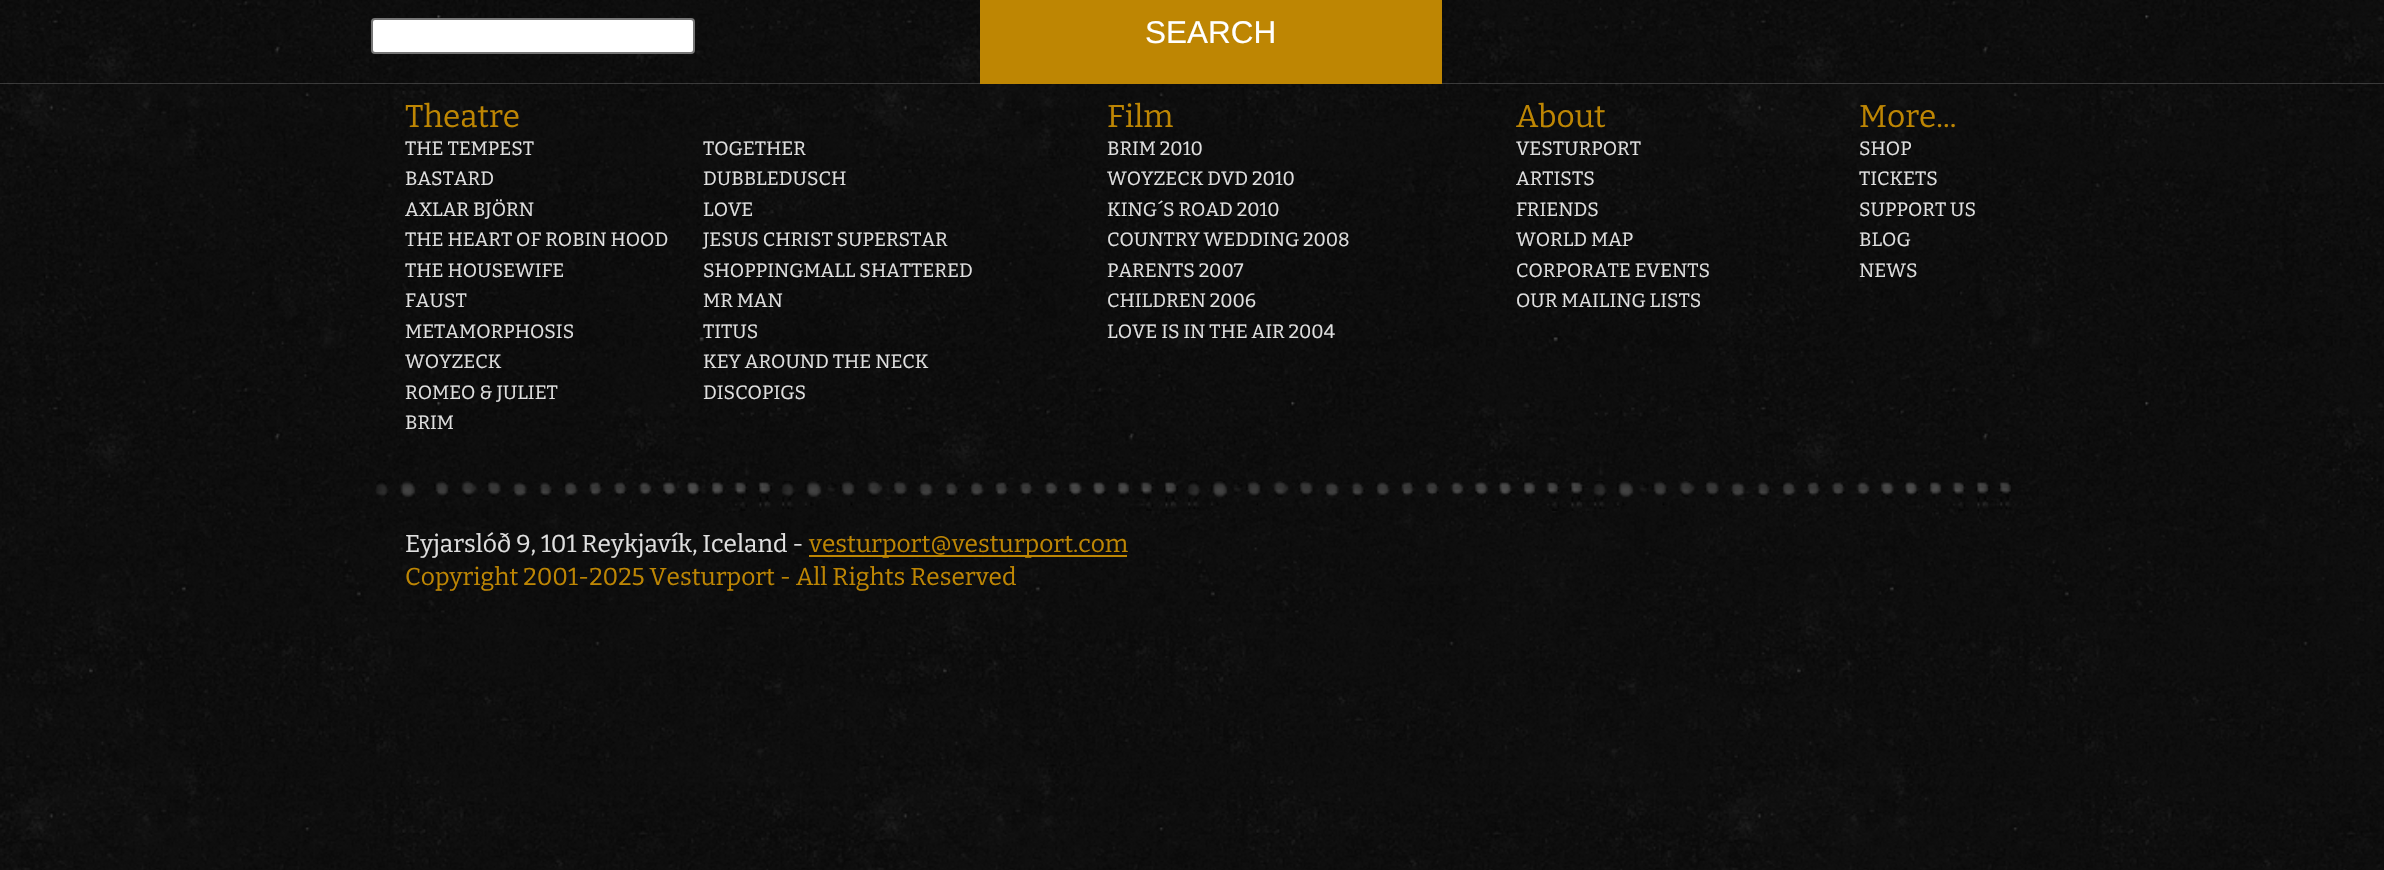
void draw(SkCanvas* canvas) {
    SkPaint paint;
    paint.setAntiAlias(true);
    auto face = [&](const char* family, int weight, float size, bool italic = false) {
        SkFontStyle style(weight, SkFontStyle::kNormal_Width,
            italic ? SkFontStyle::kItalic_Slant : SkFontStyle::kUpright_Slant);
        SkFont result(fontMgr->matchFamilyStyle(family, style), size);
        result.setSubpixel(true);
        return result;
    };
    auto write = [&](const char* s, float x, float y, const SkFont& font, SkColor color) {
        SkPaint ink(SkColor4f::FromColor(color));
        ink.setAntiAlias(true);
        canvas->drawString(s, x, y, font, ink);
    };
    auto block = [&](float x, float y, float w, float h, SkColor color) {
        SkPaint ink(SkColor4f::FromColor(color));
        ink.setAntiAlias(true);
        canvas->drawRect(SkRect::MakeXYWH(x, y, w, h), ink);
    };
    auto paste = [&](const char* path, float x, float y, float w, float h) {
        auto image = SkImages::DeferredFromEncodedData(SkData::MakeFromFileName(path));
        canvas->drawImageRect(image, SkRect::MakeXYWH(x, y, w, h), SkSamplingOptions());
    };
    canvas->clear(SK_ColorWHITE);
    paste("pic1.png", 0, 0, 2384, 84);
    paint.setColor(SK_ColorWHITE);
    canvas->drawRoundRect(SkRect::MakeXYWH(372, 19, 322, 34), 3, 3, paint);
    paint.setStyle(SkPaint::kStroke_Style);
    paint.setStrokeWidth(2);
    paint.setColor(SkColorSetRGB(118, 118, 118));
    canvas->drawRoundRect(SkRect::MakeXYWH(372, 19, 322, 34), 3, 3, paint);
    paste("pic2.png", 0, 83, 2384, 787);
    block(980, 0, 462, 84, SkColorSetRGB(190, 134, 3));
    auto kFont1 = face("Liberation Sans", 400, 31.5f);
    write("SEARCH", 1145, 43, kFont1, SK_ColorWHITE);
    auto kFont2 = face("Bitter", 400, 31.5f);
    write("Theatre", 405, 127, kFont2, SkColorSetRGB(190, 134, 3));
    auto kFont3 = face("Bitter", 400, 19.25f);
    write("THE TEMPEST", 405, 155, kFont3, SkColorSetRGB(224, 224, 224));
    write("BASTARD", 405, 185, kFont3, SkColorSetRGB(224, 224, 224));
    write("AXLAR BJÖRN", 405, 216, kFont3, SkColorSetRGB(224, 224, 224));
    write("THE HEART OF ROBIN HOOD", 405, 246, kFont3, SkColorSetRGB(224, 224, 224));
    write("THE HOUSEWIFE", 405, 277, kFont3, SkColorSetRGB(224, 224, 224));
    write("FAUST", 405, 307, kFont3, SkColorSetRGB(224, 224, 224));
    write("METAMORPHOSIS", 405, 338, kFont3, SkColorSetRGB(224, 224, 224));
    write("WOYZECK", 405, 368, kFont3, SkColorSetRGB(224, 224, 224));
    write("ROMEO & JULIET", 405, 399, kFont3, SkColorSetRGB(224, 224, 224));
    write("BRIM", 405, 429, kFont3, SkColorSetRGB(224, 224, 224));
    write("TOGETHER", 703, 155, kFont3, SkColorSetRGB(224, 224, 224));
    write("DUBBLEDUSCH", 703, 185, kFont3, SkColorSetRGB(224, 224, 224));
    write("LOVE", 703, 216, kFont3, SkColorSetRGB(224, 224, 224));
    write("JESUS CHRIST SUPERSTAR", 703, 246, kFont3, SkColorSetRGB(224, 224, 224));
    write("SHOPPINGMALL SHATTERED", 703, 277, kFont3, SkColorSetRGB(224, 224, 224));
    write("MR MAN", 703, 307, kFont3, SkColorSetRGB(224, 224, 224));
    write("TITUS", 703, 338, kFont3, SkColorSetRGB(224, 224, 224));
    write("KEY AROUND THE NECK", 703, 368, kFont3, SkColorSetRGB(224, 224, 224));
    write("DISCOPIGS", 703, 399, kFont3, SkColorSetRGB(224, 224, 224));
    write("Film", 1107, 127, kFont2, SkColorSetRGB(190, 134, 3));
    write("BRIM 2010", 1107, 155, kFont3, SkColorSetRGB(224, 224, 224));
    write("WOYZECK DVD 2010", 1107, 185, kFont3, SkColorSetRGB(224, 224, 224));
    write("KING´S ROAD 2010", 1107, 216, kFont3, SkColorSetRGB(224, 224, 224));
    write("COUNTRY WEDDING 2008", 1107, 246, kFont3, SkColorSetRGB(224, 224, 224));
    write("PARENTS 2007", 1107, 277, kFont3, SkColorSetRGB(224, 224, 224));
    write("CHILDREN 2006", 1107, 307, kFont3, SkColorSetRGB(224, 224, 224));
    write("LOVE IS IN THE AIR 2004", 1107, 338, kFont3, SkColorSetRGB(224, 224, 224));
    write("About", 1516, 127, kFont2, SkColorSetRGB(190, 134, 3));
    write("VESTURPORT", 1516, 155, kFont3, SkColorSetRGB(224, 224, 224));
    write("ARTISTS", 1516, 185, kFont3, SkColorSetRGB(224, 224, 224));
    write("FRIENDS", 1516, 216, kFont3, SkColorSetRGB(224, 224, 224));
    write("WORLD MAP", 1516, 246, kFont3, SkColorSetRGB(224, 224, 224));
    write("CORPORATE EVENTS", 1516, 277, kFont3, SkColorSetRGB(224, 224, 224));
    write("OUR MAILING LISTS", 1516, 307, kFont3, SkColorSetRGB(224, 224, 224));
    write("More...", 1859, 127, kFont2, SkColorSetRGB(190, 134, 3));
    write("SHOP", 1859, 155, kFont3, SkColorSetRGB(224, 224, 224));
    write("TICKETS", 1859, 185, kFont3, SkColorSetRGB(224, 224, 224));
    write("SUPPORT US", 1859, 216, kFont3, SkColorSetRGB(224, 224, 224));
    write("BLOG", 1859, 246, kFont3, SkColorSetRGB(224, 224, 224));
    write("NEWS", 1859, 277, kFont3, SkColorSetRGB(224, 224, 224));
    paste("pic3.png", 375, 481, 1636, 30);
    auto kFont4 = face("Bitter", 400, 24.5f);
    write("Eyjarslóð 9, 101 Reykjavík, Iceland -", 405, 552, kFont4, SkColorSetRGB(224, 224, 224));
    block(809, 555, 318, 2, SkColorSetRGB(190, 134, 3));
    write("vesturport@vesturport.com", 809, 552, kFont4, SkColorSetRGB(190, 134, 3));
    write("Copyright 2001-2025 Vesturport - All Rights Reserved", 405, 585, kFont4, SkColorSetRGB(190, 134, 3));
}
